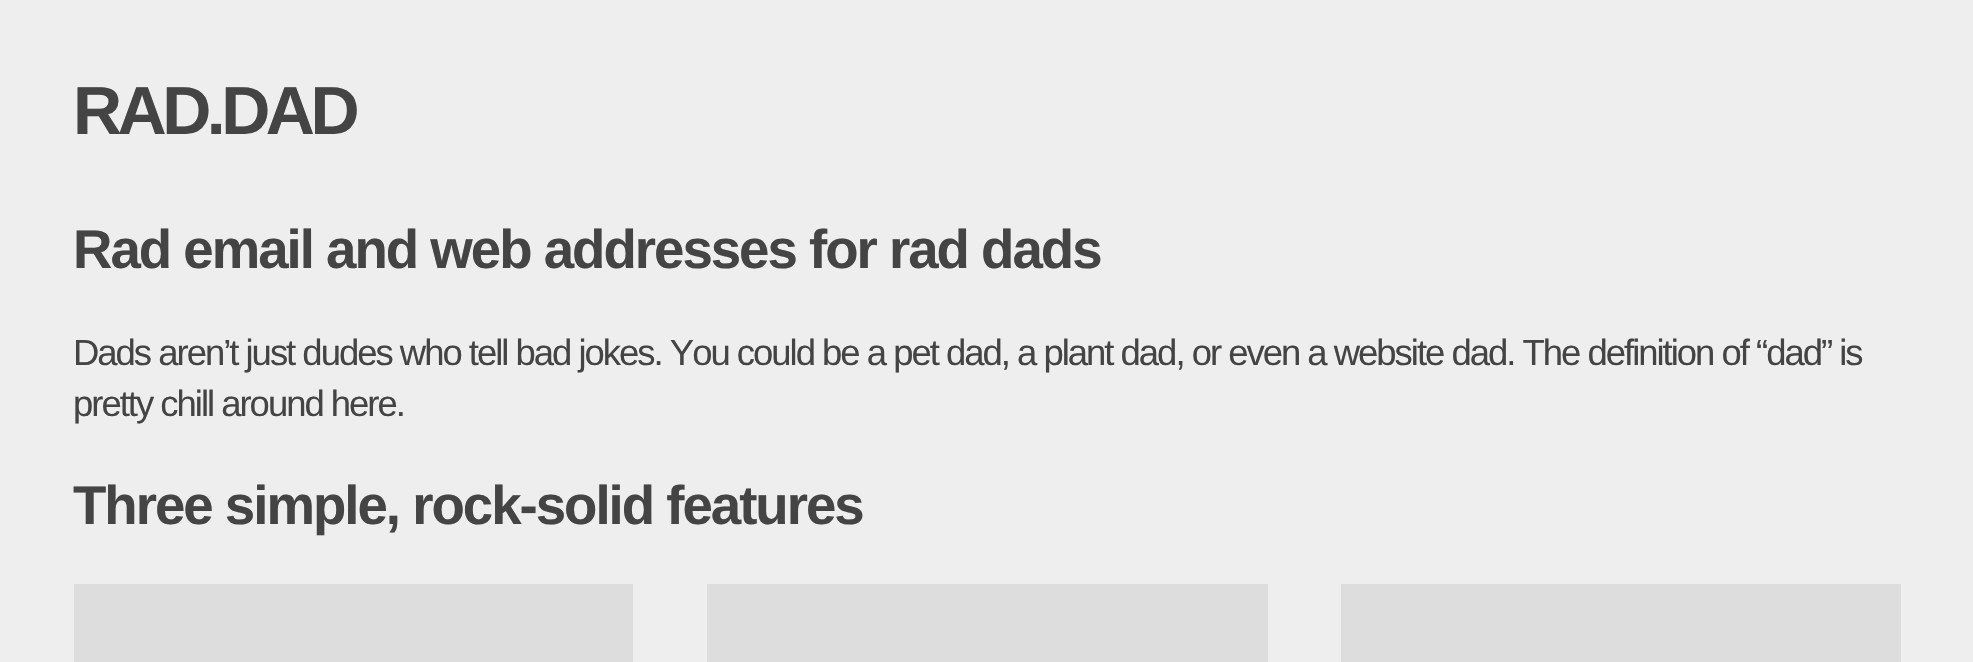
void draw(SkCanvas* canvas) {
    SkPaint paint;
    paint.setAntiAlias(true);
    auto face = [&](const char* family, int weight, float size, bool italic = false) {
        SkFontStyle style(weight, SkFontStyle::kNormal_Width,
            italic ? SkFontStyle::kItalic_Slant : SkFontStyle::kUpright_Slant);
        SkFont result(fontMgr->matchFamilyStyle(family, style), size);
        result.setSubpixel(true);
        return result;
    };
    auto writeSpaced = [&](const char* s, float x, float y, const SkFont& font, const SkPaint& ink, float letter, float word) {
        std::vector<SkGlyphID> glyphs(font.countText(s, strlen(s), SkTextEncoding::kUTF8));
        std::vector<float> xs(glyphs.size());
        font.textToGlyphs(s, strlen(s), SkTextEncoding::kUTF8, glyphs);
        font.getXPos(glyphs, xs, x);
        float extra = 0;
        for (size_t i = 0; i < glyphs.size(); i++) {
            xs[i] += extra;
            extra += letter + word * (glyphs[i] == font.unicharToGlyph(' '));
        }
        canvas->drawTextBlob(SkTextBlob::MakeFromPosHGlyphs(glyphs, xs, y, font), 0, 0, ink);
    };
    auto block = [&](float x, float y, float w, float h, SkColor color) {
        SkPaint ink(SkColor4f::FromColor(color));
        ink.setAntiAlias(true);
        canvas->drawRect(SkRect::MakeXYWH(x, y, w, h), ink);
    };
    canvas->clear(SkColorSetRGB(238, 238, 238));
    auto kFont1 = face("Liberation Sans", 700, 68);
    paint.setColor(SkColorSetRGB(68, 68, 68));
    writeSpaced("RAD.DAD", 73, 134, kFont1, paint, -4.5f, 0);
    auto kFont2 = face("Liberation Sans", 700, 54.6f);
    writeSpaced("Rad email and web addresses for rad dads", 73, 268, kFont2, paint, -2, 0);
    auto kFont3 = face("Liberation Sans", 400, 36.45f);
    writeSpaced("Dads aren’t just dudes who tell bad jokes. You could be a pet dad, a plant dad, or even a website dad. The definition of “dad” is", 73, 365, kFont3, paint, -2, 0);
    writeSpaced("pretty chill around here.", 73, 416, kFont3, paint, -2, 0);
    writeSpaced("Three simple, rock-solid features", 73, 524, kFont2, paint, -2, 0);
    block(74, 584, 559, 78, SkColorSetRGB(221, 221, 221));
    block(707, 584, 561, 78, SkColorSetRGB(221, 221, 221));
    block(1341, 584, 560, 78, SkColorSetRGB(221, 221, 221));
}
